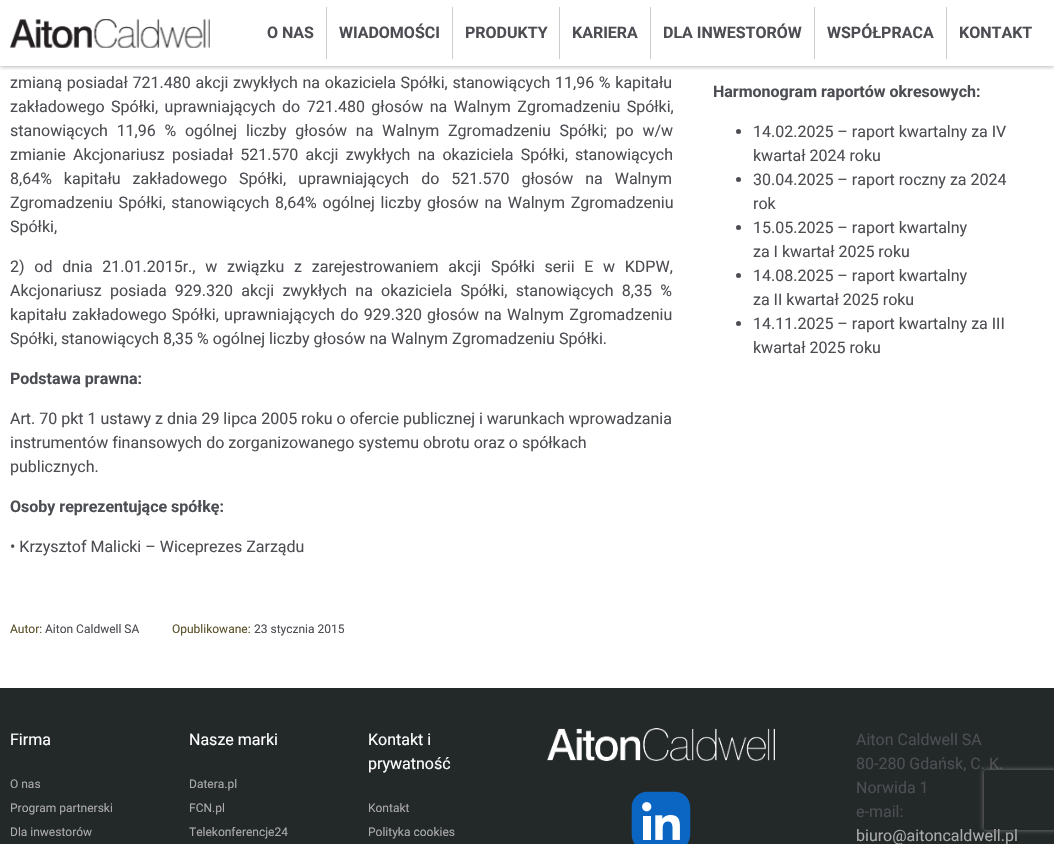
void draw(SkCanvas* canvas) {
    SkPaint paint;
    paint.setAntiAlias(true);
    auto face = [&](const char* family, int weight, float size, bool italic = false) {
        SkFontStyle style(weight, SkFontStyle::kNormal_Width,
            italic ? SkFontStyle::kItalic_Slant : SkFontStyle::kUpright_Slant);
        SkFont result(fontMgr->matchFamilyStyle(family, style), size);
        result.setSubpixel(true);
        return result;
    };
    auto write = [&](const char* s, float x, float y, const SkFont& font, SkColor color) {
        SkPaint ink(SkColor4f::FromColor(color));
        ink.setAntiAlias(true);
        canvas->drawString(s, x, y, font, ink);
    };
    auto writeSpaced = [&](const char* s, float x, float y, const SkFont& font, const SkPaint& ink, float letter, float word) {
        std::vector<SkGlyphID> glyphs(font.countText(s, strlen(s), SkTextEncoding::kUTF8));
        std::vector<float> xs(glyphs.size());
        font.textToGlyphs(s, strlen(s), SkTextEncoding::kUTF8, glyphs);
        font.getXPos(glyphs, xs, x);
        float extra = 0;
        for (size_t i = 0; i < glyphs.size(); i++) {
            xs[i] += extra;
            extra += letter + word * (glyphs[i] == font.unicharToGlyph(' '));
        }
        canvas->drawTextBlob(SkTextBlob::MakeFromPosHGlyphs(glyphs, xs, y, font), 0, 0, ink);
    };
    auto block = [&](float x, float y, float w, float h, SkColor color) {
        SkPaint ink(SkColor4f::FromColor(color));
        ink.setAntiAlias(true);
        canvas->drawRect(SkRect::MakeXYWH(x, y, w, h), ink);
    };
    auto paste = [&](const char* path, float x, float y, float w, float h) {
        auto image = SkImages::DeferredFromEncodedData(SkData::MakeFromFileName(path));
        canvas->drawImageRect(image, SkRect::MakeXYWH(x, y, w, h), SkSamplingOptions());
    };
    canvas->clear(SK_ColorWHITE);
    paste("pic1.png", 10, 19, 200, 29);
    block(326, 7, 1, 52, SkColorSetRGB(204, 204, 204));
    block(452, 7, 1, 52, SkColorSetRGB(204, 204, 204));
    block(559, 7, 1, 52, SkColorSetRGB(204, 204, 204));
    block(650, 7, 1, 52, SkColorSetRGB(204, 204, 204));
    block(814, 7, 1, 52, SkColorSetRGB(204, 204, 204));
    block(946, 7, 1, 52, SkColorSetRGB(204, 204, 204));
    canvas->save();
    canvas->clipRect(SkRect::MakeXYWH(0, 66, 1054, 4));
    paint.setColor(SkColorSetARGB(99, 0, 0, 0));
    paint.setMaskFilter(SkMaskFilter::MakeBlur(kNormal_SkBlurStyle, 2.5f));
    canvas->drawRect(SkRect::MakeXYWH(0, 0, 1054, 66), paint);
    paint.setMaskFilter(nullptr);
    canvas->restore();
    auto kFont1 = face("Roboto", 700, 16);
    write("O NAS", 267, 38, kFont1, SkColorSetRGB(77, 78, 83));
    write("WIADOMOŚCI", 339, 38, kFont1, SkColorSetRGB(77, 78, 83));
    write("PRODUKTY", 465, 38, kFont1, SkColorSetRGB(77, 78, 83));
    write("KARIERA", 572, 38, kFont1, SkColorSetRGB(77, 78, 83));
    write("DLA INWESTORÓW", 663, 38, kFont1, SkColorSetRGB(77, 78, 83));
    write("WSPÓŁPRACA", 827, 38, kFont1, SkColorSetRGB(77, 78, 83));
    write("KONTAKT", 959, 38, kFont1, SkColorSetRGB(77, 78, 83));
    auto kFont2 = face("Roboto", 400, 16);
    paint.setColor(SkColorSetRGB(77, 78, 83));
    writeSpaced("zmianą posiadał 721.480 akcji zwykłych na okaziciela Spółki, stanowiących 11,96 % kapitału", 10, 88, kFont2, paint, 0, 0.75f);
    writeSpaced("zakładowego Spółki, uprawniających do 721.480 głosów na Walnym Zgromadzeniu Spółki,", 10, 112, kFont2, paint, 0, 2.5f);
    writeSpaced("stanowiących 11,96 % ogólnej liczby głosów na Walnym Zgromadzeniu Spółki; po w/w", 10, 136, kFont2, paint, 0, 4.75f);
    writeSpaced("zmianie Akcjonariusz posiadał 521.570 akcji zwykłych na okaziciela Spółki, stanowiących", 10, 160, kFont2, paint, 0, 3.25f);
    writeSpaced("8,64% kapitału zakładowego Spółki, uprawniających do 521.570 głosów na Walnym", 10, 184, kFont2, paint, 0, 8);
    writeSpaced("Zgromadzeniu Spółki, stanowiących 8,64% ogólnej liczby głosów na Walnym Zgromadzeniu", 10, 208, kFont2, paint, 0, 1.75f);
    write("Spółki,", 10, 232, kFont2, SkColorSetRGB(77, 78, 83));
    writeSpaced("2) od dnia 21.01.2015r., w związku z zarejestrowaniem akcji Spółki serii E w KDPW,", 10, 272, kFont2, paint, 0, 5.75f);
    writeSpaced("Akcjonariusz posiada 929.320 akcji zwykłych na okaziciela Spółki, stanowiących 8,35 %", 10, 296, kFont2, paint, 0, 4.25f);
    writeSpaced("kapitału zakładowego Spółki, uprawniających do 929.320 głosów na Walnym Zgromadzeniu", 10, 320, kFont2, paint, 0, 1.25f);
    write("Spółki, stanowiących 8,35 % ogólnej liczby głosów na Walnym Zgromadzeniu Spółki.", 10, 344, kFont2, SkColorSetRGB(77, 78, 83));
    write("Podstawa prawna:", 10, 384, kFont1, SkColorSetRGB(77, 78, 83));
    write("Art. 70 pkt 1 ustawy z dnia 29 lipca 2005 roku o ofercie publicznej i warunkach wprowadzania", 10, 424, kFont2, SkColorSetRGB(77, 78, 83));
    write("instrumentów finansowych do zorganizowanego systemu obrotu oraz o spółkach", 10, 448, kFont2, SkColorSetRGB(77, 78, 83));
    write("publicznych.", 10, 472, kFont2, SkColorSetRGB(77, 78, 83));
    write("Osoby reprezentujące spółkę:", 10, 512, kFont1, SkColorSetRGB(77, 78, 83));
    write("• Krzysztof Malicki – Wiceprezes Zarządu", 10, 552, kFont2, SkColorSetRGB(77, 78, 83));
    write("Harmonogram raportów okresowych:", 713, 97, kFont1, SkColorSetRGB(77, 78, 83));
    canvas->drawCircle(738.5f, 131.5f, 2.5f, paint);
    write("14.02.2025 – raport kwartalny za IV", 753, 137, kFont2, SkColorSetRGB(77, 78, 83));
    write("kwartał 2024 roku", 753, 161, kFont2, SkColorSetRGB(77, 78, 83));
    canvas->drawCircle(738.5f, 179.5f, 2.5f, paint);
    write("30.04.2025 – raport roczny za 2024", 753, 185, kFont2, SkColorSetRGB(77, 78, 83));
    write("rok", 753, 209, kFont2, SkColorSetRGB(77, 78, 83));
    canvas->drawCircle(738.5f, 227.5f, 2.5f, paint);
    write("15.05.2025 – raport kwartalny", 753, 233, kFont2, SkColorSetRGB(77, 78, 83));
    write("za I kwartał 2025 roku", 753, 257, kFont2, SkColorSetRGB(77, 78, 83));
    canvas->drawCircle(738.5f, 275.5f, 2.5f, paint);
    write("14.08.2025 – raport kwartalny", 753, 281, kFont2, SkColorSetRGB(77, 78, 83));
    write("za II kwartał 2025 roku", 753, 305, kFont2, SkColorSetRGB(77, 78, 83));
    canvas->drawCircle(738.5f, 323.5f, 2.5f, paint);
    write("14.11.2025 – raport kwartalny za III", 753, 329, kFont2, SkColorSetRGB(77, 78, 83));
    write("kwartał 2025 roku", 753, 353, kFont2, SkColorSetRGB(77, 78, 83));
    auto kFont3 = face("Roboto", 400, 12);
    write("Autor:", 10, 633, kFont3, SkColorSetRGB(91, 81, 42));
    write("Aiton Caldwell SA", 45, 633, kFont3, SkColorSetRGB(77, 78, 83));
    write("Opublikowane:", 172, 633, kFont3, SkColorSetRGB(91, 81, 42));
    write("23 stycznia 2015", 254, 633, kFont3, SkColorSetRGB(77, 78, 83));
    block(0, 688, 1054, 156, SkColorSetRGB(35, 40, 40));
    write("Firma", 10, 745, kFont2, SK_ColorWHITE);
    write("O nas", 10, 788, kFont3, SkColorSetRGB(170, 170, 170));
    write("Program partnerski", 10, 812, kFont3, SkColorSetRGB(170, 170, 170));
    write("Dla inwestorów", 10, 836, kFont3, SkColorSetRGB(170, 170, 170));
    write("Nasze marki", 189, 745, kFont2, SK_ColorWHITE);
    write("Datera.pl", 189, 788, kFont3, SkColorSetRGB(170, 170, 170));
    write("FCN.pl", 189, 812, kFont3, SkColorSetRGB(170, 170, 170));
    write("Telekonferencje24", 189, 836, kFont3, SkColorSetRGB(170, 170, 170));
    write("Kontakt i", 368, 745, kFont2, SK_ColorWHITE);
    write("prywatność", 368, 769, kFont2, SK_ColorWHITE);
    write("Kontakt", 368, 812, kFont3, SkColorSetRGB(170, 170, 170));
    write("Polityka cookies", 368, 836, kFont3, SkColorSetRGB(170, 170, 170));
    paste("pic2.png", 547, 728, 228, 33);
    paste("pic3.png", 631, 791, 60, 53);
    write("Aiton Caldwell SA", 856, 745, kFont2, SkColorSetRGB(77, 78, 83));
    write("80-280 Gdańsk, C. K.", 856, 769, kFont2, SkColorSetRGB(77, 78, 83));
    write("Norwida 1", 856, 793, kFont2, SkColorSetRGB(77, 78, 83));
    write("e-mail:", 856, 817, kFont2, SkColorSetRGB(77, 78, 83));
    write("biuro@aitoncaldwell.pl", 856, 841, kFont2, SkColorSetRGB(170, 170, 170));
    canvas->save();
    canvas->clipPath(SkPathBuilder(SkPathFillType::kEvenOdd).moveTo(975, 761).lineTo(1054, 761).lineTo(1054, 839).lineTo(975, 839).close().moveTo(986, 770).lineTo(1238, 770).cubicTo(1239, 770, 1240, 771, 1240, 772).lineTo(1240, 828).cubicTo(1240, 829, 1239, 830, 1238, 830).lineTo(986, 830).cubicTo(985, 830, 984, 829, 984, 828).lineTo(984, 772).cubicTo(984, 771, 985, 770, 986, 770).close().detach(), true);
    paint.setColor(SkColorSetRGB(128, 128, 128));
    paint.setMaskFilter(SkMaskFilter::MakeBlur(kNormal_SkBlurStyle, 2.5f));
    canvas->drawRoundRect(SkRect::MakeXYWH(984, 770, 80, 60), 2, 2, paint);
    paint.setMaskFilter(nullptr);
    canvas->restore();
}
